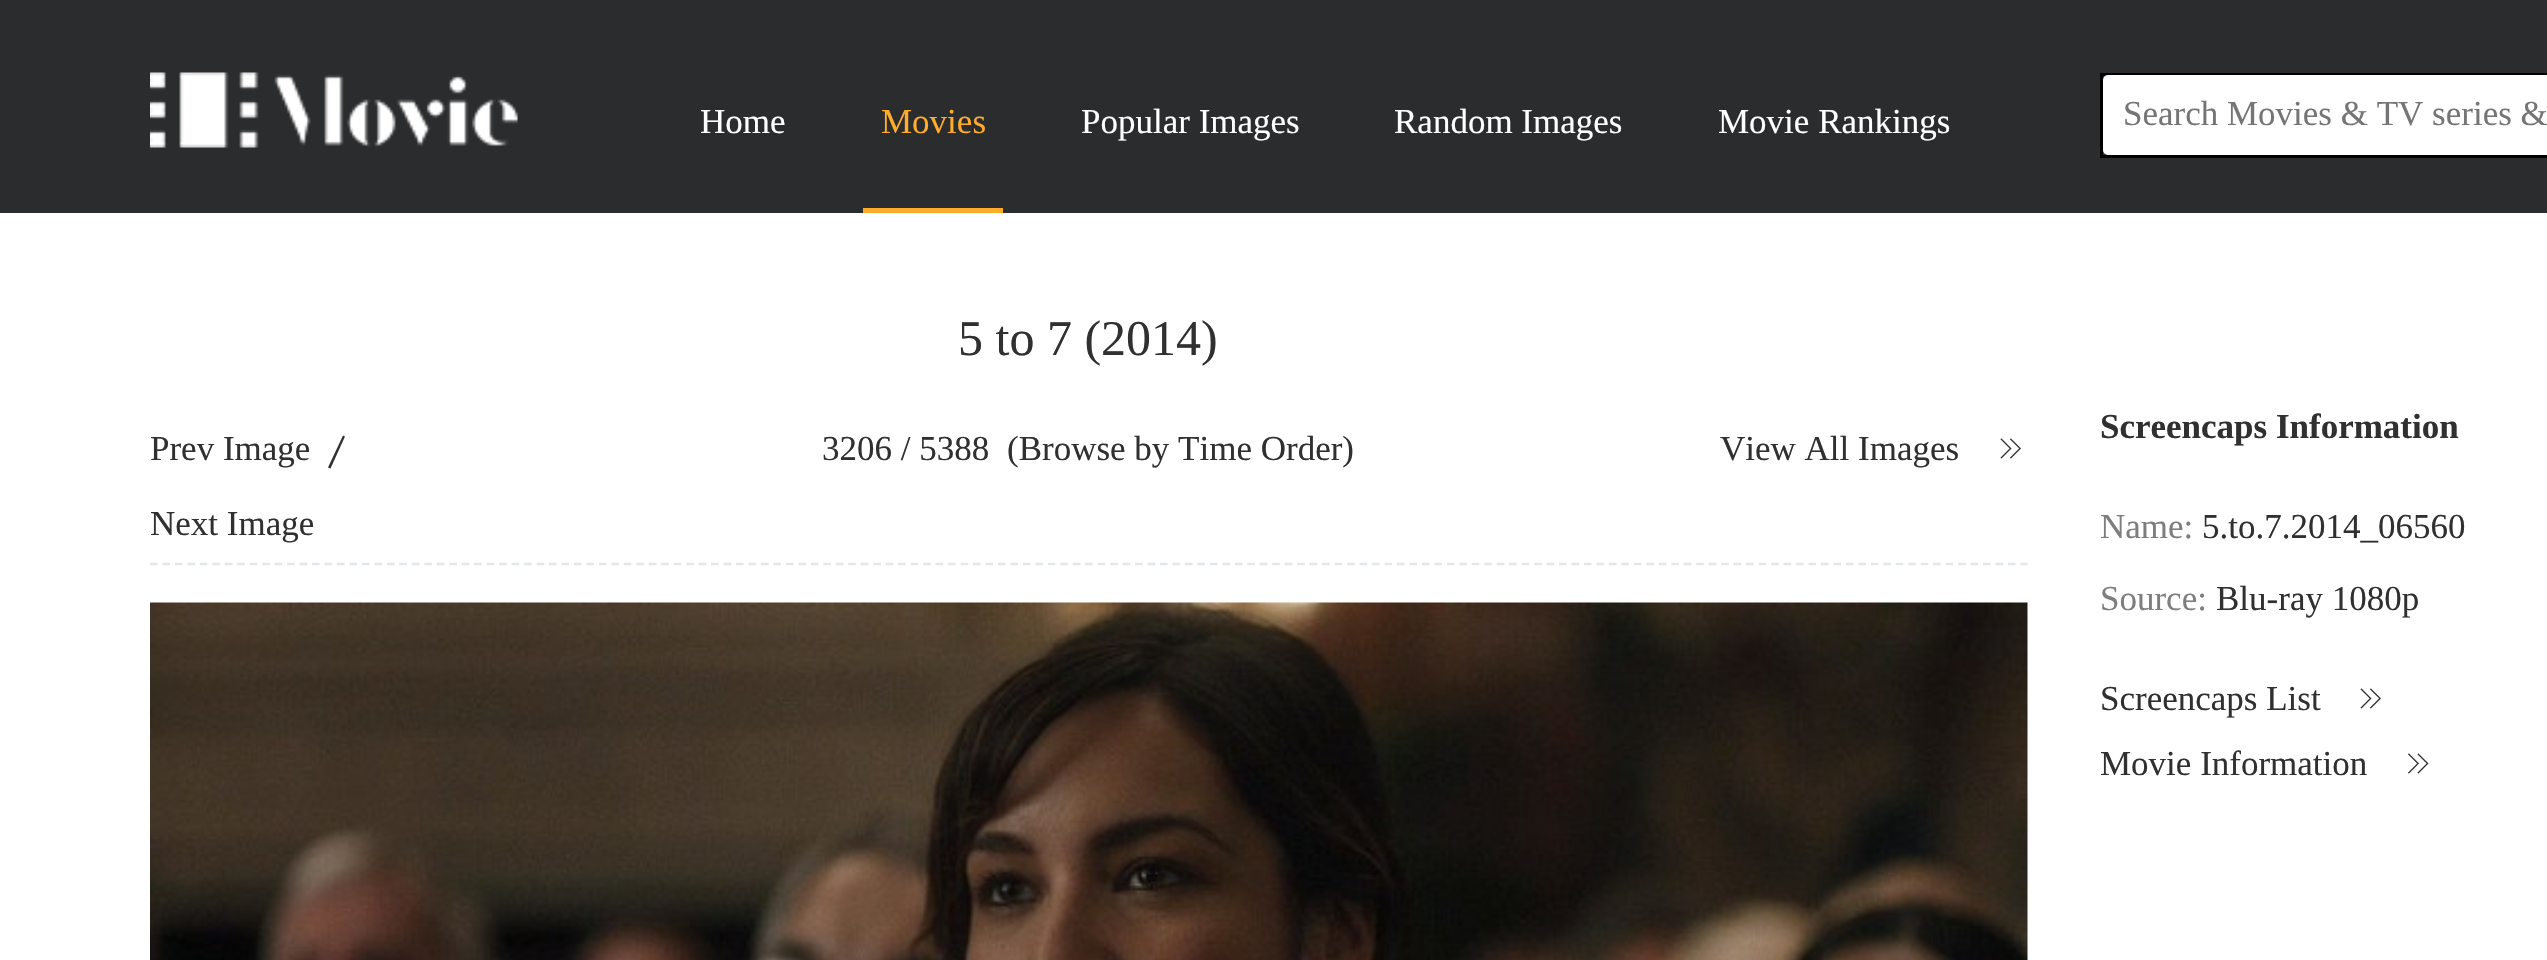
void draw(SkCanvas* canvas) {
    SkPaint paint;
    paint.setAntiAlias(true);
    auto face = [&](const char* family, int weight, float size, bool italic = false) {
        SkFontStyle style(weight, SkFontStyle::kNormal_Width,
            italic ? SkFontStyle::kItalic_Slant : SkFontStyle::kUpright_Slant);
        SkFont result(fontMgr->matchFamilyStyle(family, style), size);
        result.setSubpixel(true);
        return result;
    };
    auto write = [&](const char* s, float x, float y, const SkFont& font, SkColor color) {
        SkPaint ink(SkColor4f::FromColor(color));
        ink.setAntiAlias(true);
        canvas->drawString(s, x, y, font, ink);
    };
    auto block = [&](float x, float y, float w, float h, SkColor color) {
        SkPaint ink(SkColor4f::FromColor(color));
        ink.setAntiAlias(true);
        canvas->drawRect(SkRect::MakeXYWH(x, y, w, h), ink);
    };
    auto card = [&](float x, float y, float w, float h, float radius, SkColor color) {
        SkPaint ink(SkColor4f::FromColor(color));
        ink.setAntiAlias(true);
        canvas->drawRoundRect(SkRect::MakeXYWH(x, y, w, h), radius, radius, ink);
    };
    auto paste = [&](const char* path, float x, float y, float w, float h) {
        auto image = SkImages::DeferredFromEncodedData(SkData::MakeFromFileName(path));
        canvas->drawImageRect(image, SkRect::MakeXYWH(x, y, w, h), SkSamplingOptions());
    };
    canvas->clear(SK_ColorWHITE);
    block(0, 0, 2547, 213, SkColorSetRGB(43, 44, 46));
    paste("pic1.png", 150, 72, 368, 76);
    auto kFont1 = face("Liberation Serif", 400, 35);
    write("Home", 700, 133, kFont1, SK_ColorWHITE);
    block(863, 208, 140, 5, SkColorSetRGB(255, 172, 45));
    write("Movies", 881, 133, kFont1, SkColorSetRGB(255, 172, 45));
    write("Popular Images", 1081, 133, kFont1, SK_ColorWHITE);
    write("Random Images", 1394, 133, kFont1, SK_ColorWHITE);
    write("Movie Rankings", 1718, 133, kFont1, SK_ColorWHITE);
    paint.setStyle(SkPaint::kStroke_Style);
    paint.setStrokeWidth(3);
    paint.setColor(SK_ColorBLACK);
    canvas->drawRect(SkRect::MakeXYWH(2101.5f, 74.5f, 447, 82), paint);
    card(2103, 75, 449, 80, 5, SK_ColorWHITE);
    write("Search Movies & TV series &", 2123, 125, kFont1, SkColorSetRGB(117, 117, 117));
    auto kFont2 = face("Liberation Serif", 400, 50);
    write("5 to 7 (2014)", 958, 355, kFont2, SkColorSetRGB(48, 48, 48));
    paint.setStrokeWidth(2.5f);
    paint.setColor(SkColorSetRGB(226, 231, 235));
    paint.setPathEffect(SkDashPathEffect::Make({{7.5f, 4.97f}}, 0));
    canvas->drawPath(SkPathBuilder().moveTo(150, 564).lineTo(2027.5f, 564).detach(), paint);
    paint.setPathEffect(nullptr);
    write("Prev Image", 150, 460, kFont1, SkColorSetRGB(48, 48, 48));
    paint.setStyle(SkPaint::kFill_Style);
    paint.setColor(SkColorSetRGB(48, 48, 48));
    canvas->drawPath(SkPathBuilder().moveTo(343, 435.5f).lineTo(345, 436.5f).lineTo(330.5f, 468.5f).lineTo(328, 467.5f).close().detach(), paint);
    write("Next Image", 150, 535, kFont1, SkColorSetRGB(48, 48, 48));
    write("3206 / 5388", 822, 460, kFont1, SkColorSetRGB(48, 48, 48));
    write("(Browse by Time Order)", 1007, 460, kFont1, SkColorSetRGB(48, 48, 48));
    write("View All Images", 1720, 460, kFont1, SkColorSetRGB(48, 48, 48));
    paste("pic2.png", 2000, 438, 21, 21);
    paste("pic3.png", 150, 602, 1878, 358);
    auto kFont3 = face("Liberation Serif", 700, 35);
    write("Screencaps Information", 2100, 438, kFont3, SkColorSetRGB(48, 48, 48));
    write("Name:", 2100, 538, kFont1, SkColorSetRGB(126, 126, 126));
    write("5.to.7.2014_06560", 2202, 538, kFont1, SkColorSetRGB(48, 48, 48));
    write("Source:", 2100, 610, kFont1, SkColorSetRGB(126, 126, 126));
    write("Blu-ray 1080p", 2216, 610, kFont1, SkColorSetRGB(48, 48, 48));
    write("Screencaps List", 2100, 710, kFont1, SkColorSetRGB(48, 48, 48));
    paste("pic2.png", 2360, 688, 21, 21);
    write("Movie Information", 2100, 775, kFont1, SkColorSetRGB(48, 48, 48));
    paste("pic4.png", 2408, 753, 21, 21);
}
